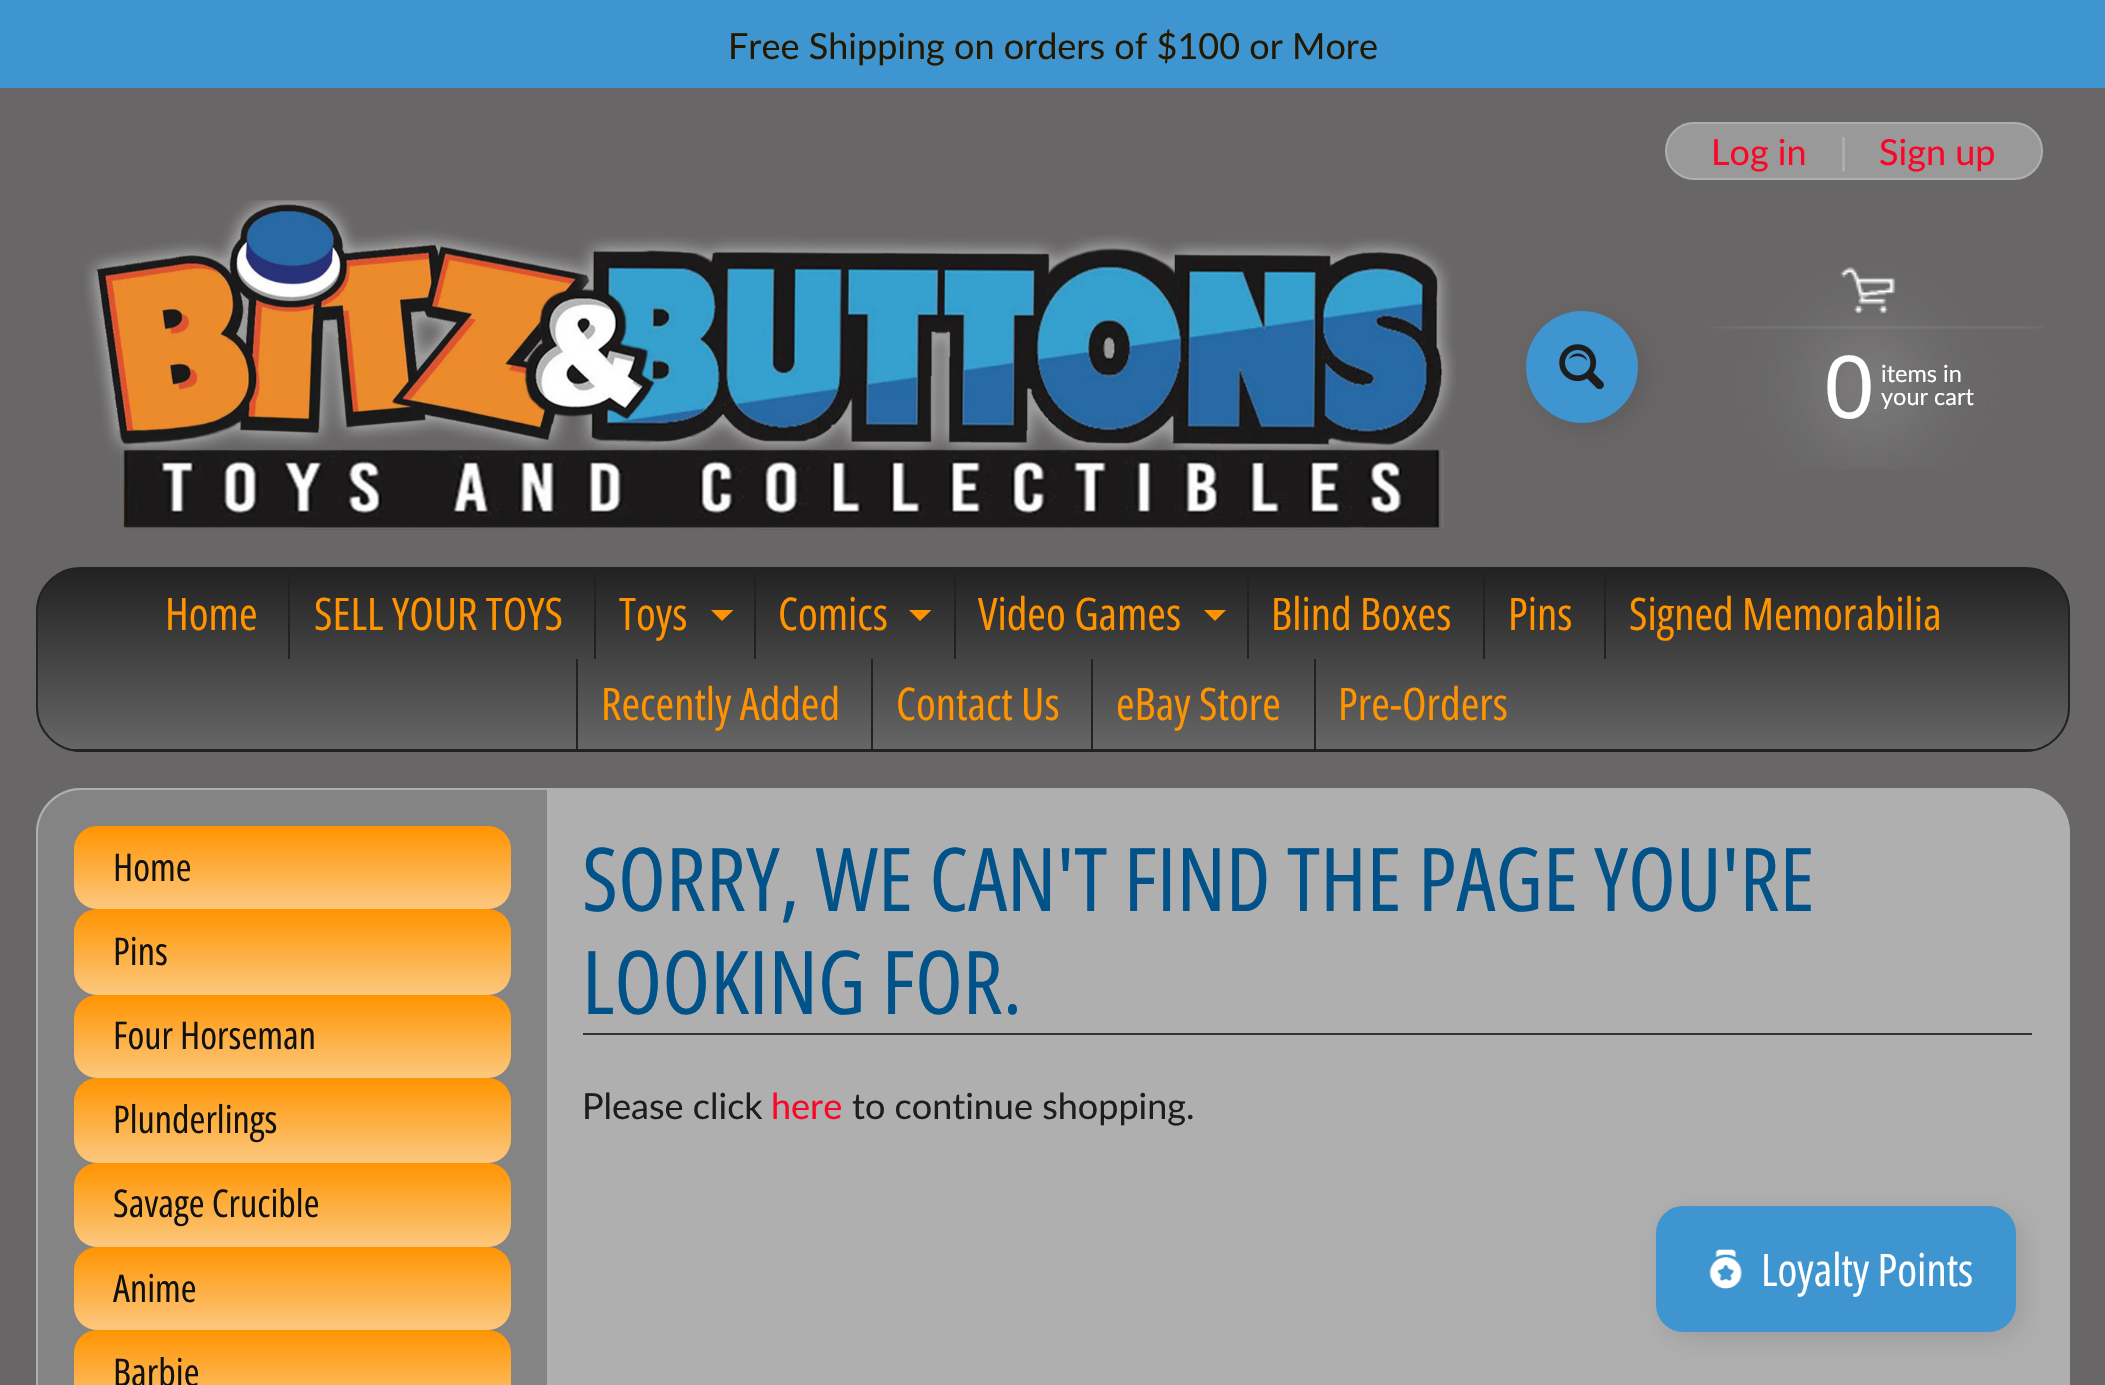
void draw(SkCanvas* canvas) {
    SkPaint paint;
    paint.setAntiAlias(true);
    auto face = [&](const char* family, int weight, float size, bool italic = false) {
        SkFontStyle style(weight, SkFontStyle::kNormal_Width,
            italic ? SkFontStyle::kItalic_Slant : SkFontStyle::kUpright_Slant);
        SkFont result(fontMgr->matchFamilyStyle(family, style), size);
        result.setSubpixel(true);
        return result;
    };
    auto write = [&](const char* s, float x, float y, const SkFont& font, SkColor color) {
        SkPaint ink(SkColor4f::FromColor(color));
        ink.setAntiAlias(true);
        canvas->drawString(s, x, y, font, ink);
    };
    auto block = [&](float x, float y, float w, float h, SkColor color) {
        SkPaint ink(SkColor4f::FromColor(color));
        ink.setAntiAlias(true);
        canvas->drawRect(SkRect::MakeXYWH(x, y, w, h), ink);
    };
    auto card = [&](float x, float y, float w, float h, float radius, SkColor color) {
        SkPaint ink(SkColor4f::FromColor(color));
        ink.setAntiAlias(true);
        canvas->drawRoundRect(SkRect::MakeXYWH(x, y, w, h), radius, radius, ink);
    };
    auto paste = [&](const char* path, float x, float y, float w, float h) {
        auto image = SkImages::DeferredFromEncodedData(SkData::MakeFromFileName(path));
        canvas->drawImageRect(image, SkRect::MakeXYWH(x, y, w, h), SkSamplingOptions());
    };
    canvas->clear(SkColorSetRGB(104, 102, 102));
    block(0, 0, 2105, 88, SkColorSetRGB(63, 149, 207));
    auto kFont1 = face("Lato", 400, 36);
    write("Free Shipping on orders of $100 or More", 728, 59, kFont1, SkColorSetRGB(37, 24, 0));
    paste("pic1.png", 84, 200, 1372, 330);
    paint.setColor(SkColorSetRGB(154, 153, 153));
    canvas->drawRoundRect(SkRect::MakeXYWH(1666, 123, 376, 56), 28, 28, paint);
    paint.setStyle(SkPaint::kStroke_Style);
    paint.setStrokeWidth(2);
    paint.setColor(SkColorSetRGB(175, 175, 175));
    canvas->drawRoundRect(SkRect::MakeXYWH(1666, 123, 376, 56), 28, 28, paint);
    write("Log in", 1711, 165, kFont1, SkColorSetRGB(250, 6, 39));
    write("|", 1839, 165, kFont1, SkColorSetRGB(175, 175, 175));
    write("Sign up", 1879, 165, kFont1, SkColorSetRGB(250, 6, 39));
    paint.setStyle(SkPaint::kFill_Style);
    paint.setColor(SkColorSetARGB(26, 0, 0, 0));
    paint.setMaskFilter(SkMaskFilter::MakeBlur(kNormal_SkBlurStyle, 13.5f));
    canvas->drawRoundRect(SkRect::MakeXYWH(1532, 317, 113, 113), 56.5f, 56.5f, paint);
    paint.setMaskFilter(nullptr);
    paint.setColor(SkColorSetRGB(63, 149, 207));
    canvas->drawCircle(1582, 367, 56, paint);
    paste("pic2.png", 1559, 344, 45, 45);
    paste("pic3.png", 1710, 267, 334, 202);
    auto kFont2 = face("Liberation Sans", 400, 90);
    write("0", 1824, 418, kFont2, SK_ColorWHITE);
    auto kFont3 = face("Lato", 400, 23.5f);
    write("items in", 1881, 382, kFont3, SK_ColorWHITE);
    write("your cart", 1881, 405, kFont3, SK_ColorWHITE);
    canvas->save();
    canvas->clipPath(SkPathBuilder().moveTo(81, 567).lineTo(2025, 567).cubicTo(2050, 567, 2070, 587, 2070, 612).lineTo(2070, 707).cubicTo(2070, 732, 2050, 752, 2025, 752).lineTo(81, 752).cubicTo(56, 752, 36, 732, 36, 707).lineTo(36, 612).cubicTo(36, 587, 56, 567, 81, 567).close().detach(), true);
    {
        const SkColor colors[] = {SkColorSetRGB(34, 34, 34), SkColorSetRGB(102, 102, 102)};
        const float stops[] = {0, 1};
        const SkPoint ends[] = {{1053, 569}, {1053, 749}};
        paint.setShader(SkGradientShader::MakeLinear(ends, colors, stops, 2, SkTileMode::kClamp));
        paint.setAlpha(255);
    }
    canvas->drawRect(SkRect::MakeXYWH(36, 569, 2034, 180), paint);
    {
        const SkColor colors[] = {SkColorSetRGB(34, 34, 34), SkColorSetRGB(102, 102, 102)};
        const float stops[] = {0, 1};
        const SkPoint ends[] = {{1053, 749}, {1053, 929}};
        paint.setShader(SkGradientShader::MakeLinear(ends, colors, stops, 2, SkTileMode::kClamp));
        paint.setAlpha(255);
    }
    canvas->drawRect(SkRect::MakeXYWH(65, 749, 1976, 3), paint);
    canvas->restore();
    paint.setStyle(SkPaint::kStroke_Style);
    paint.setShader(nullptr);
    paint.setColor(SkColorSetRGB(34, 34, 34));
    canvas->drawRoundRect(SkRect::MakeXYWH(37, 568, 2032, 183), 44, 44, paint);
    auto kFont4 = face("Open Sans Condensed", 400, 45);
    write("Home", 165, 630, kFont4, SkColorSetRGB(255, 148, 0));
    block(288, 569, 2, 90, SkColorSetRGB(34, 34, 34));
    write("SELL YOUR TOYS", 314, 630, kFont4, SkColorSetRGB(255, 148, 0));
    block(594, 569, 2, 90, SkColorSetRGB(34, 34, 34));
    write("Toys", 619, 630, kFont4, SkColorSetRGB(255, 148, 0));
    paint.setStyle(SkPaint::kFill_Style);
    paint.setColor(SkColorSetRGB(255, 148, 0));
    canvas->drawPath(SkPathBuilder().moveTo(711, 610).lineTo(733.5f, 610).lineTo(722, 621).close().detach(), paint);
    block(754, 569, 2, 90, SkColorSetRGB(34, 34, 34));
    write("Comics", 778, 630, kFont4, SkColorSetRGB(255, 148, 0));
    canvas->drawPath(SkPathBuilder().moveTo(909, 610).lineTo(931.5f, 610).lineTo(920, 621).close().detach(), paint);
    block(954, 569, 2, 90, SkColorSetRGB(34, 34, 34));
    write("Video Games", 978, 630, kFont4, SkColorSetRGB(255, 148, 0));
    canvas->drawPath(SkPathBuilder().moveTo(1204, 610).lineTo(1226, 610).lineTo(1215, 621).close().detach(), paint);
    block(1247, 569, 2, 90, SkColorSetRGB(34, 34, 34));
    write("Blind Boxes", 1271, 630, kFont4, SkColorSetRGB(255, 148, 0));
    block(1483, 569, 2, 90, SkColorSetRGB(34, 34, 34));
    write("Pins", 1508, 630, kFont4, SkColorSetRGB(255, 148, 0));
    block(1604, 569, 2, 90, SkColorSetRGB(34, 34, 34));
    write("Signed Memorabilia", 1629, 630, kFont4, SkColorSetRGB(255, 148, 0));
    block(576, 659, 2, 90, SkColorSetRGB(34, 34, 34));
    write("Recently Added", 601, 720, kFont4, SkColorSetRGB(255, 148, 0));
    block(871, 659, 2, 90, SkColorSetRGB(34, 34, 34));
    write("Contact Us", 896, 720, kFont4, SkColorSetRGB(255, 148, 0));
    block(1091, 659, 2, 90, SkColorSetRGB(34, 34, 34));
    write("eBay Store", 1116, 720, kFont4, SkColorSetRGB(255, 148, 0));
    block(1314, 659, 2, 90, SkColorSetRGB(34, 34, 34));
    write("Pre-Orders", 1338, 720, kFont4, SkColorSetRGB(255, 148, 0));
    card(36, 788, 2034, 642, 45, SkColorSetRGB(175, 175, 175));
    paint.setStyle(SkPaint::kStroke_Style);
    paint.setColor(SkColorSetARGB(179, 175, 175, 175));
    canvas->drawRoundRect(SkRect::MakeXYWH(37, 789, 2032, 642), 44, 44, paint);
    paint.setStyle(SkPaint::kFill_Style);
    paint.setColor(SkColorSetRGB(132, 132, 132));
    canvas->drawPath(SkPathBuilder().moveTo(81, 790).lineTo(547, 790).lineTo(547, 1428).lineTo(81, 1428).cubicTo(57.5f, 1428, 38, 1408.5f, 38, 1385).lineTo(38, 833).cubicTo(38, 809.5f, 57.5f, 790, 81, 790).close().detach(), paint);
    {
        const SkColor colors[] = {SkColorSetRGB(255, 148, 0), SkColorSetRGB(252, 200, 127)};
        const float stops[] = {0, 1};
        const SkPoint ends[] = {{293, 826}, {293, 909}};
        paint.setShader(SkGradientShader::MakeLinear(ends, colors, stops, 2, SkTileMode::kClamp));
        paint.setAlpha(255);
    }
    canvas->drawRoundRect(SkRect::MakeXYWH(74, 826, 437, 83), 23, 23, paint);
    auto kFont5 = face("Open Sans Condensed", 400, 38.25f);
    write("Home", 113, 881, kFont5, SkColorSetRGB(17, 17, 17));
    {
        const SkColor colors[] = {SkColorSetRGB(255, 148, 0), SkColorSetRGB(252, 200, 127)};
        const float stops[] = {0, 1};
        const SkPoint ends[] = {{293, 909}, {293, 995}};
        paint.setShader(SkGradientShader::MakeLinear(ends, colors, stops, 2, SkTileMode::kClamp));
        paint.setAlpha(255);
    }
    canvas->drawRoundRect(SkRect::MakeXYWH(74, 909, 437, 86), 23, 23, paint);
    write("Pins", 113, 965, kFont5, SkColorSetRGB(17, 17, 17));
    {
        const SkColor colors[] = {SkColorSetRGB(255, 148, 0), SkColorSetRGB(252, 200, 127)};
        const float stops[] = {0, 1};
        const SkPoint ends[] = {{293, 995}, {293, 1078}};
        paint.setShader(SkGradientShader::MakeLinear(ends, colors, stops, 2, SkTileMode::kClamp));
        paint.setAlpha(255);
    }
    canvas->drawRoundRect(SkRect::MakeXYWH(74, 995, 437, 83), 23, 23, paint);
    write("Four Horseman", 113, 1049, kFont5, SkColorSetRGB(17, 17, 17));
    {
        const SkColor colors[] = {SkColorSetRGB(255, 148, 0), SkColorSetRGB(252, 200, 127)};
        const float stops[] = {0, 1};
        const SkPoint ends[] = {{293, 1078}, {293, 1163}};
        paint.setShader(SkGradientShader::MakeLinear(ends, colors, stops, 2, SkTileMode::kClamp));
        paint.setAlpha(255);
    }
    canvas->drawRoundRect(SkRect::MakeXYWH(74, 1078, 437, 85), 23, 23, paint);
    write("Plunderlings", 113, 1133, kFont5, SkColorSetRGB(17, 17, 17));
    {
        const SkColor colors[] = {SkColorSetRGB(255, 148, 0), SkColorSetRGB(252, 200, 127)};
        const float stops[] = {0, 1};
        const SkPoint ends[] = {{293, 1163}, {293, 1247}};
        paint.setShader(SkGradientShader::MakeLinear(ends, colors, stops, 2, SkTileMode::kClamp));
        paint.setAlpha(255);
    }
    canvas->drawRoundRect(SkRect::MakeXYWH(74, 1163, 437, 84), 23, 23, paint);
    write("Savage Crucible", 113, 1217, kFont5, SkColorSetRGB(17, 17, 17));
    {
        const SkColor colors[] = {SkColorSetRGB(255, 148, 0), SkColorSetRGB(252, 200, 127)};
        const float stops[] = {0, 1};
        const SkPoint ends[] = {{293, 1247}, {293, 1330}};
        paint.setShader(SkGradientShader::MakeLinear(ends, colors, stops, 2, SkTileMode::kClamp));
        paint.setAlpha(255);
    }
    canvas->drawRoundRect(SkRect::MakeXYWH(74, 1247, 437, 83), 23, 23, paint);
    write("Anime", 113, 1302, kFont5, SkColorSetRGB(17, 17, 17));
    {
        const SkColor colors[] = {SkColorSetRGB(255, 148, 0), SkColorSetRGB(252, 200, 127)};
        const float stops[] = {0, 1};
        const SkPoint ends[] = {{293, 1330}, {293, 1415}};
        paint.setShader(SkGradientShader::MakeLinear(ends, colors, stops, 2, SkTileMode::kClamp));
        paint.setAlpha(255);
    }
    canvas->drawRoundRect(SkRect::MakeXYWH(74, 1330, 437, 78), 23, 23, paint);
    write("Barbie", 113, 1386, kFont5, SkColorSetRGB(17, 17, 17));
    block(583, 1033, 1449, 2, SkColorSetRGB(51, 51, 51));
    auto kFont6 = face("Open Sans Condensed", 400, 87.9f);
    write("SORRY, WE CAN'T FIND THE PAGE YOU'RE", 582, 911, kFont6, SkColorSetRGB(0, 82, 137));
    write("LOOKING FOR.", 582, 1014, kFont6, SkColorSetRGB(0, 82, 137));
    write("Please click", 582, 1119, kFont1, SkColorSetRGB(29, 29, 29));
    write("here", 771, 1119, kFont1, SkColorSetRGB(250, 6, 39));
    write("to continue shopping.", 852, 1119, kFont1, SkColorSetRGB(29, 29, 29));
    paint.setShader(nullptr);
    paint.setColor(SkColorSetARGB(26, 0, 0, 0));
    paint.setMaskFilter(SkMaskFilter::MakeBlur(kNormal_SkBlurStyle, 13.5f));
    canvas->drawRoundRect(SkRect::MakeXYWH(1663, 1213, 360, 126), 27, 27, paint);
    paint.setMaskFilter(nullptr);
    card(1656, 1206, 360, 126, 27, SkColorSetRGB(63, 149, 207));
    paste("pic4.png", 1709, 1249, 33, 40);
    write("Loyalty Points", 1761, 1286, kFont4, SK_ColorWHITE);
}
